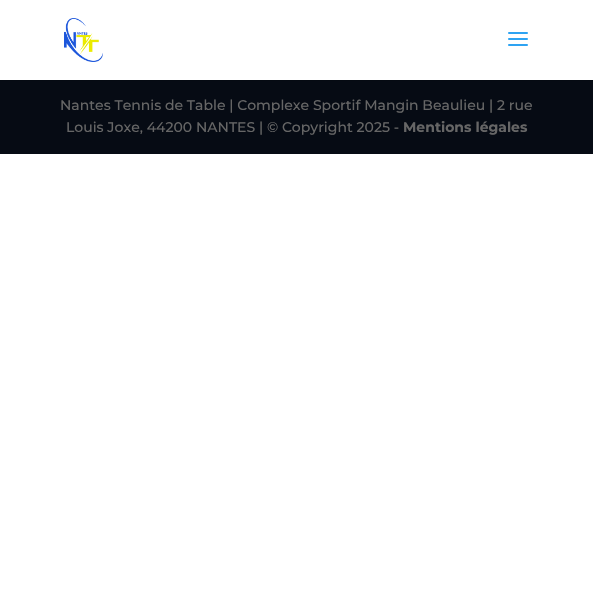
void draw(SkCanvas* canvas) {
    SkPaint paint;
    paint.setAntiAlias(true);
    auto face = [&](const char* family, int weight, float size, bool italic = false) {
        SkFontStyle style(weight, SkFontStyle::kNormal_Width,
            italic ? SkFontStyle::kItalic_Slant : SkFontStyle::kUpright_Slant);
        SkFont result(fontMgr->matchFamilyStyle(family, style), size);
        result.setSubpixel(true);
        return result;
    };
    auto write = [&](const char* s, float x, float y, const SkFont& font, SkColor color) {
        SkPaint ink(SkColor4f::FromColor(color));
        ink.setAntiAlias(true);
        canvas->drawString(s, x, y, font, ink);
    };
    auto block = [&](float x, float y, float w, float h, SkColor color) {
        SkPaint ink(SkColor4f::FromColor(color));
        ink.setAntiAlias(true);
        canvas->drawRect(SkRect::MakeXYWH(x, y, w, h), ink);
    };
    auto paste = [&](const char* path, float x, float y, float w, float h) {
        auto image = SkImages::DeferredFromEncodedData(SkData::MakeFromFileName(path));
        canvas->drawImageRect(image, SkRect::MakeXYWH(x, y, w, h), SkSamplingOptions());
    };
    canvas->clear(SK_ColorWHITE);
    block(0, 80, 593, 1, SkColorSetRGB(5, 10, 18));
    paste("pic1.png", 64, 18, 39, 44);
    paste("pic2.png", 508, 32, 20, 14);
    block(0, 81, 593, 73, SkColorSetRGB(6, 11, 20));
    auto kFont1 = face("Montserrat", 500, 14);
    write("Nantes Tennis de Table | Complexe Sportif Mangin Beaulieu | 2 rue", 60, 110, kFont1, SkColorSetRGB(102, 102, 102));
    write("Louis Joxe, 44200 NANTES | © Copyright 2025 -", 66, 132, kFont1, SkColorSetRGB(102, 102, 102));
    auto kFont2 = face("Montserrat", 700, 14);
    write("Mentions légales", 403, 132, kFont2, SkColorSetRGB(102, 102, 102));
}
